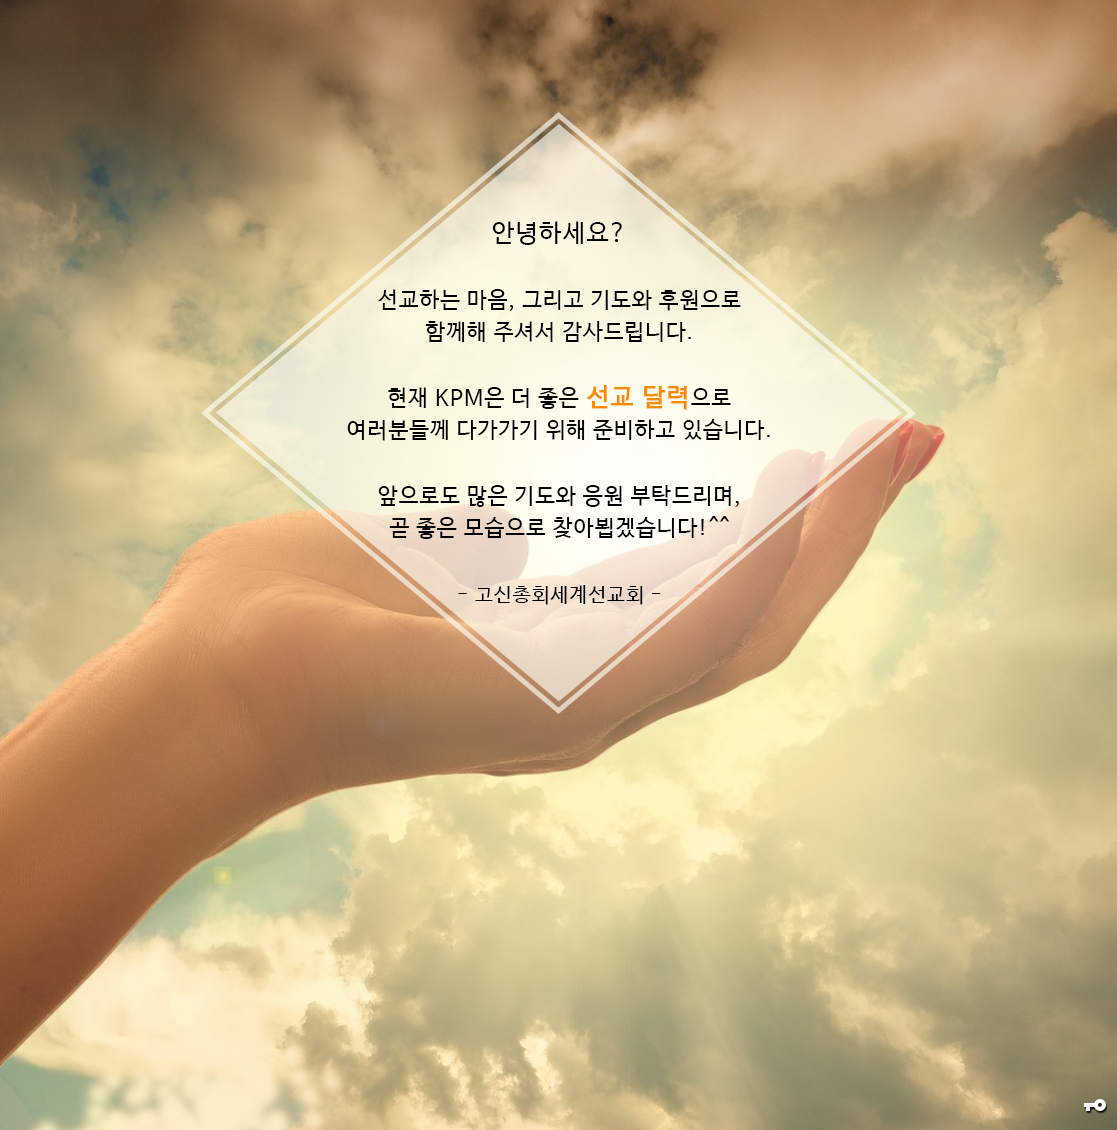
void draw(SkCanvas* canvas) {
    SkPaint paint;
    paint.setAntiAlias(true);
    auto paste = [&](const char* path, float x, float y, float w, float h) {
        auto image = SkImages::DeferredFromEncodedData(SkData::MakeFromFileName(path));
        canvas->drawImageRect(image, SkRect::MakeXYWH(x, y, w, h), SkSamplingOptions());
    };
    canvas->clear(SK_ColorWHITE);
    paste("pic1.png", 0, 0, 1117, 1130);
    paste("pic2.png", 201, 112, 715, 602);
    paste("pic3.png", 1084, 1099, 23, 15);
}
